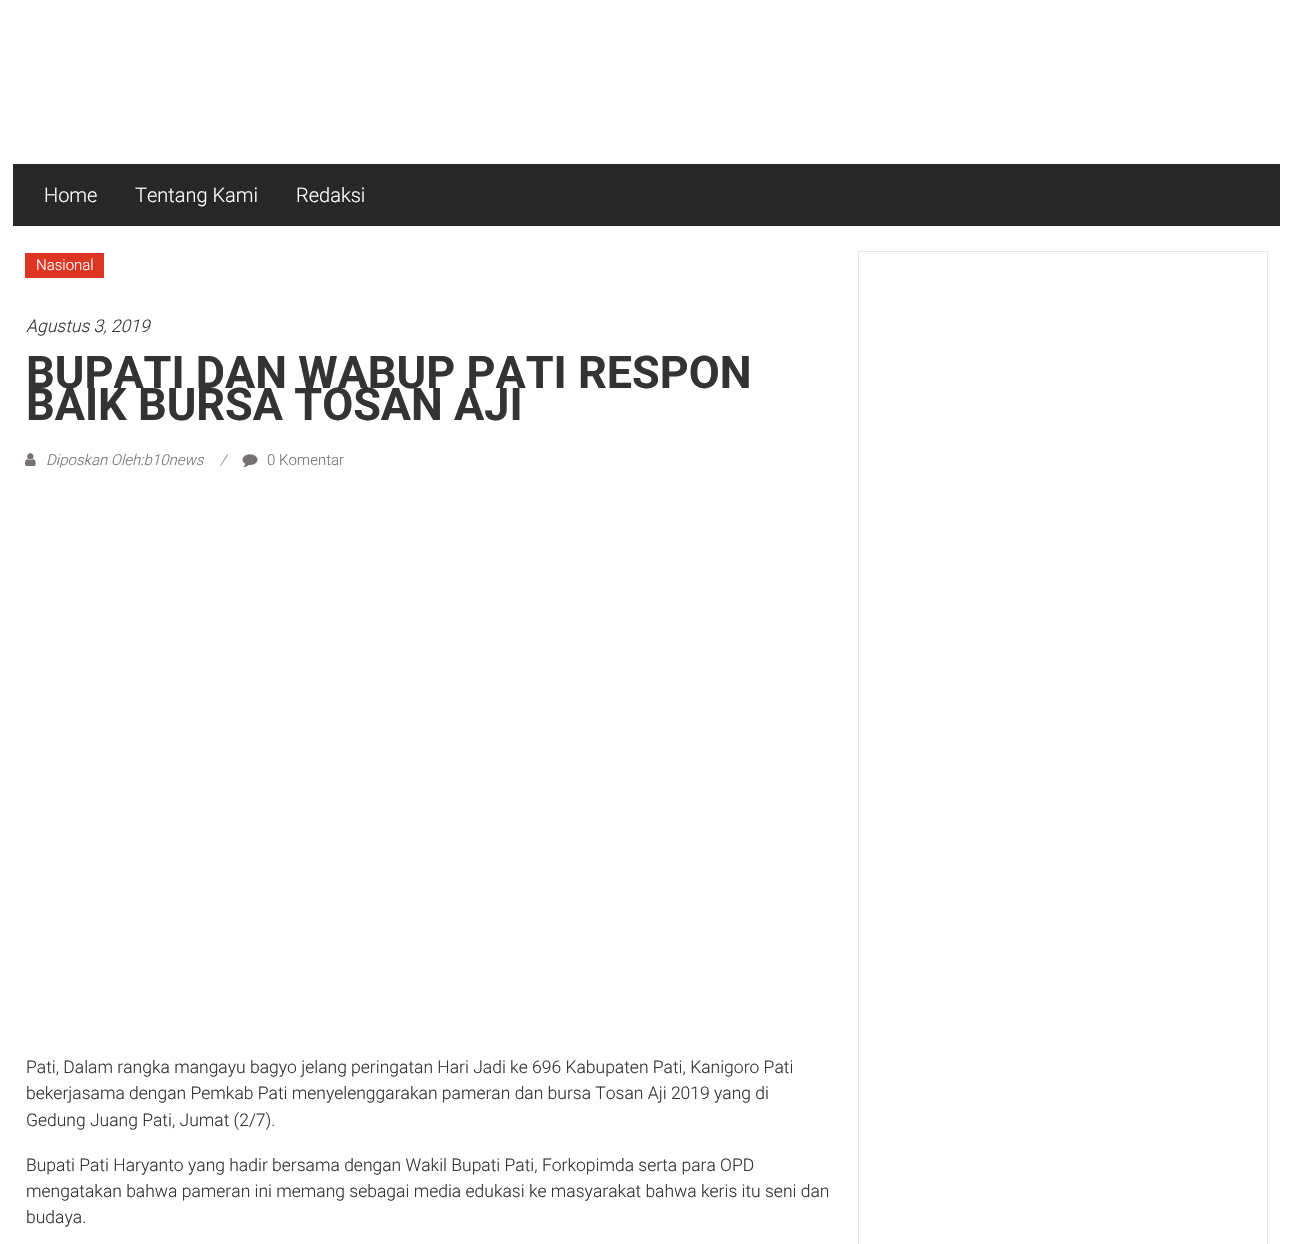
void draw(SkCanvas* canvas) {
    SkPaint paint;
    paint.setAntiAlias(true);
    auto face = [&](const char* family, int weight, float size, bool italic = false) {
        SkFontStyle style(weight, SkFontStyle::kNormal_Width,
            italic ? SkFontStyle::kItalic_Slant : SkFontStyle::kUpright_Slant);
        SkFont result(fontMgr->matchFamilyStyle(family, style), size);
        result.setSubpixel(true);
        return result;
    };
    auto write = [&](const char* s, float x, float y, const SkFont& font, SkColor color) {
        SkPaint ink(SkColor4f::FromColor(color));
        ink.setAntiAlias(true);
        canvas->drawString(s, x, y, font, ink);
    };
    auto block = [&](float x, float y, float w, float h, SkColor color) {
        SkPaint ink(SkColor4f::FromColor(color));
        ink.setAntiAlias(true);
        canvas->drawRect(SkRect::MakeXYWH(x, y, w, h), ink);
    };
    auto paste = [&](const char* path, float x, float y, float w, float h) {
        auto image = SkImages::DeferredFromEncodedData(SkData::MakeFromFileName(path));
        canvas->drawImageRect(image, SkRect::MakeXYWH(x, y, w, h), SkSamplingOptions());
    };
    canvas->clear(SK_ColorWHITE);
    block(13, 164, 1267, 62, SkColorSetRGB(39, 39, 39));
    auto kFont1 = face("Roboto", 300, 20);
    write("Home", 44, 202, kFont1, SK_ColorWHITE);
    write("Tentang Kami", 135, 202, kFont1, SK_ColorWHITE);
    write("Redaksi", 296, 202, kFont1, SK_ColorWHITE);
    block(25, 253, 79, 25, SkColorSetRGB(220, 53, 34));
    auto kFont2 = face("Roboto", 300, 15);
    write("Nasional", 36, 270, kFont2, SK_ColorWHITE);
    auto kFont3 = face("Roboto", 300, 17.5f, true);
    write("Agustus 3, 2019", 26, 332, kFont3, SkColorSetRGB(51, 51, 51));
    auto kFont4 = face("Roboto", 700, 45);
    write("BUPATI DAN WABUP PATI RESPON", 26, 388, kFont4, SkColorSetRGB(51, 51, 51));
    write("BAIK BURSA TOSAN AJI", 26, 420, kFont4, SkColorSetRGB(51, 51, 51));
    paste("pic1.png", 25, 453, 11, 14);
    auto kFont5 = face("Roboto", 300, 15, true);
    write("Diposkan Oleh:b10news", 46, 465, kFont5, SkColorSetRGB(118, 114, 114));
    write("/", 220, 465, kFont5, SkColorSetRGB(128, 128, 128));
    paste("pic2.png", 242, 454, 16, 14);
    write("0 Komentar", 267, 465, kFont2, SkColorSetRGB(118, 114, 114));
    auto kFont6 = face("Roboto", 300, 17.5f);
    write("Pati, Dalam rangka mangayu bagyo jelang peringatan Hari Jadi ke 696 Kabupaten Pati, Kanigoro Pati", 26, 1073, kFont6, SkColorSetRGB(51, 51, 51));
    write("bekerjasama dengan Pemkab Pati menyelenggarakan pameran dan bursa Tosan Aji 2019 yang di", 26, 1099, kFont6, SkColorSetRGB(51, 51, 51));
    write("Gedung Juang Pati, Jumat (2/7).", 26, 1126, kFont6, SkColorSetRGB(51, 51, 51));
    write("Bupati Pati Haryanto yang hadir bersama dengan Wakil Bupati Pati, Forkopimda serta para OPD", 26, 1171, kFont6, SkColorSetRGB(51, 51, 51));
    write("mengatakan bahwa pameran ini memang sebagai media edukasi ke masyarakat bahwa keris itu seni dan", 26, 1197, kFont6, SkColorSetRGB(51, 51, 51));
    write("budaya.", 26, 1223, kFont6, SkColorSetRGB(51, 51, 51));
    paint.setStyle(SkPaint::kStroke_Style);
    paint.setStrokeWidth(1);
    paint.setColor(SkColorSetRGB(230, 230, 230));
    canvas->drawRect(SkRect::MakeXYWH(858.5f, 251.5f, 409, 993), paint);
}
